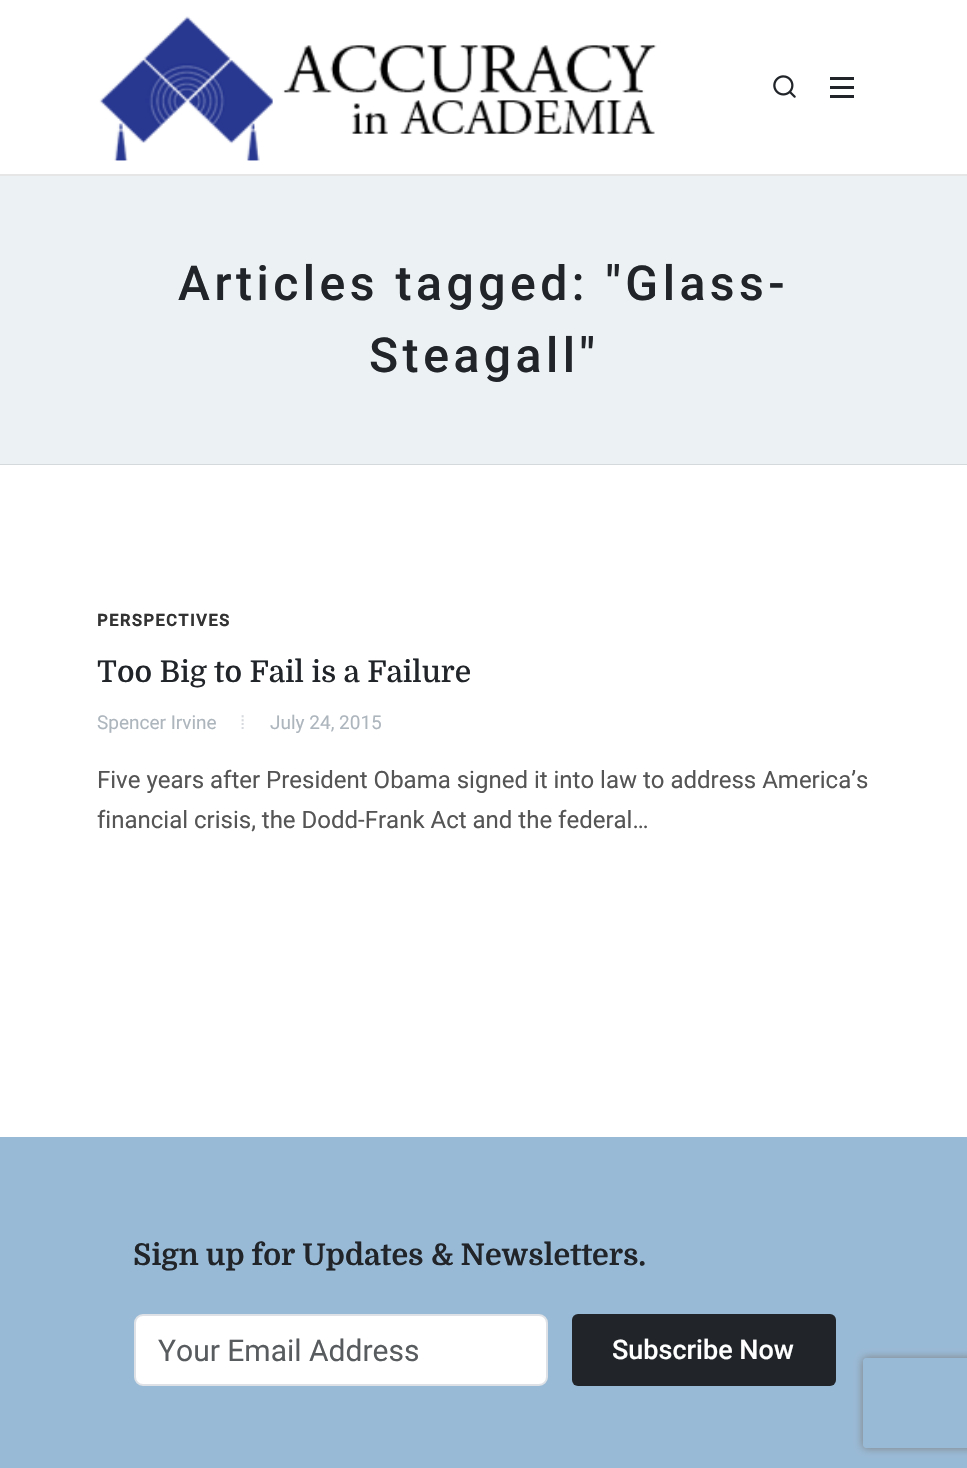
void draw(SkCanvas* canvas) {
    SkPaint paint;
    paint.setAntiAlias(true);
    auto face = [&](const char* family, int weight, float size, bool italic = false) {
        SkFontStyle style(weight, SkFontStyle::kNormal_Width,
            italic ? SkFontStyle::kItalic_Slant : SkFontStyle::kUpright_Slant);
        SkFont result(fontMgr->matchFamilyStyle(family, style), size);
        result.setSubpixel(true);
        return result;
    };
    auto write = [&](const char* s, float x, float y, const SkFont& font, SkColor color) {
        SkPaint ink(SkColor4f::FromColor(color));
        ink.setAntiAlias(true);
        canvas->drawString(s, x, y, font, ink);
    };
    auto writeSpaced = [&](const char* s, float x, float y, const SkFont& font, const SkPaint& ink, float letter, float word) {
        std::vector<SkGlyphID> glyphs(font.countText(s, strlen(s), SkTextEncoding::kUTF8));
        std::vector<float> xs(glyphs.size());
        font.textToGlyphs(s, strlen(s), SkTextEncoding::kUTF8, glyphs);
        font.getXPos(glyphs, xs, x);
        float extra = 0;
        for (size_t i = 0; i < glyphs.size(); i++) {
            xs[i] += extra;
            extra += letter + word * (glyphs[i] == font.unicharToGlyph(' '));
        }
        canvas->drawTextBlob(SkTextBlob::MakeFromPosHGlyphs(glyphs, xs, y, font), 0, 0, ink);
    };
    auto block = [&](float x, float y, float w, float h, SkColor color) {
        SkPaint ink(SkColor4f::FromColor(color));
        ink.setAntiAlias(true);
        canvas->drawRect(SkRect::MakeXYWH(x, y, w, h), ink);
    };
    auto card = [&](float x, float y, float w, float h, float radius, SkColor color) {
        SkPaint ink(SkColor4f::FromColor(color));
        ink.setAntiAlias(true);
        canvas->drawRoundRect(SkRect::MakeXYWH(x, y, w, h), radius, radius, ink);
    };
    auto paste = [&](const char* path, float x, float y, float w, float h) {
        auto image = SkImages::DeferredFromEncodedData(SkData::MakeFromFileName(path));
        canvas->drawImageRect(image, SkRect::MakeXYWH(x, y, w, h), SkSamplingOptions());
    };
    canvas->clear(SK_ColorWHITE);
    block(0, 174, 967, 2, SkColorSetRGB(230, 230, 230));
    paste("pic1.png", 99, 16, 558, 145);
    paste("pic2.png", 773, 75, 23, 23);
    block(830, 86, 24, 3, SkColorSetRGB(33, 37, 41));
    block(830, 77, 24, 3, SkColorSetRGB(33, 37, 41));
    block(830, 95, 24, 3, SkColorSetRGB(33, 37, 41));
    block(0, 176, 967, 288, SkColorSetRGB(236, 242, 244));
    block(0, 464, 967, 1, SkColorSetRGB(212, 218, 220));
    auto kFont1 = face("Roboto", 500, 48.1f);
    paint.setColor(SkColorSetRGB(33, 37, 41));
    writeSpaced("Articles tagged: \"Glass-", 178, 300, kFont1, paint, 4.5f, 0);
    writeSpaced("Steagall\"", 369, 372, kFont1, paint, 4.5f, 0);
    auto kFont2 = face("Roboto", 700, 16.5f);
    paint.setColor(SkColorSetRGB(51, 51, 51));
    writeSpaced("PERSPECTIVES", 97, 626, kFont2, paint, 1.5f, 0);
    auto kFont3 = face("Domine", 500, 30);
    write("Too Big to Fail is a Failure", 97, 682, kFont3, SkColorSetRGB(33, 37, 41));
    auto kFont4 = face("Roboto", 400, 19);
    write("Spencer Irvine", 97, 729, kFont4, SkColorSetRGB(173, 181, 189));
    auto kFont5 = face("Liberation Sans", 400, 19);
    write("⁞", 240, 729, kFont5, SkColorSetRGB(214, 218, 222));
    write("July 24, 2015", 270, 729, kFont4, SkColorSetRGB(173, 181, 189));
    auto kFont6 = face("Roboto", 400, 24);
    write("Five years after President Obama signed it into law to address America’s", 97, 788, kFont6, SkColorSetRGB(85, 85, 85));
    write("financial crisis, the Dodd-Frank Act and the federal…", 97, 828, kFont6, SkColorSetRGB(85, 85, 85));
    block(0, 1137, 967, 331, SkColorSetRGB(153, 186, 214));
    auto kFont7 = face("Domine", 700, 30);
    write("Sign up for Updates & Newsletters.", 133, 1265, kFont7, SkColorSetRGB(33, 37, 41));
    paint.setColor(SK_ColorWHITE);
    canvas->drawRoundRect(SkRect::MakeXYWH(135, 1315, 412, 70), 8, 8, paint);
    paint.setStyle(SkPaint::kStroke_Style);
    paint.setStrokeWidth(2);
    paint.setColor(SkColorSetRGB(222, 226, 230));
    canvas->drawRoundRect(SkRect::MakeXYWH(135, 1315, 412, 70), 8, 8, paint);
    auto kFont8 = face("Roboto", 400, 30);
    write("Your Email Address", 158, 1361, kFont8, SkColorSetRGB(89, 92, 95));
    card(572, 1314, 264, 72, 6, SkColorSetRGB(33, 37, 41));
    auto kFont9 = face("Roboto", 500, 27);
    write("Subscribe Now", 612, 1359, kFont9, SK_ColorWHITE);
    canvas->save();
    canvas->clipPath(SkPathBuilder(SkPathFillType::kEvenOdd).moveTo(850, 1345).lineTo(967, 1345).lineTo(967, 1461).lineTo(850, 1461).close().moveTo(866, 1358).lineTo(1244, 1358).cubicTo(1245.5f, 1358, 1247, 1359.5f, 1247, 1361).lineTo(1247, 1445).cubicTo(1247, 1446.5f, 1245.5f, 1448, 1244, 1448).lineTo(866, 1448).cubicTo(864.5f, 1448, 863, 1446.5f, 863, 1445).lineTo(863, 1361).cubicTo(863, 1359.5f, 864.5f, 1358, 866, 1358).close().detach(), true);
    paint.setStyle(SkPaint::kFill_Style);
    paint.setColor(SkColorSetRGB(128, 128, 128));
    paint.setMaskFilter(SkMaskFilter::MakeBlur(kNormal_SkBlurStyle, 4));
    canvas->drawRoundRect(SkRect::MakeXYWH(863, 1358, 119, 90), 3, 3, paint);
    paint.setMaskFilter(nullptr);
    canvas->restore();
}
